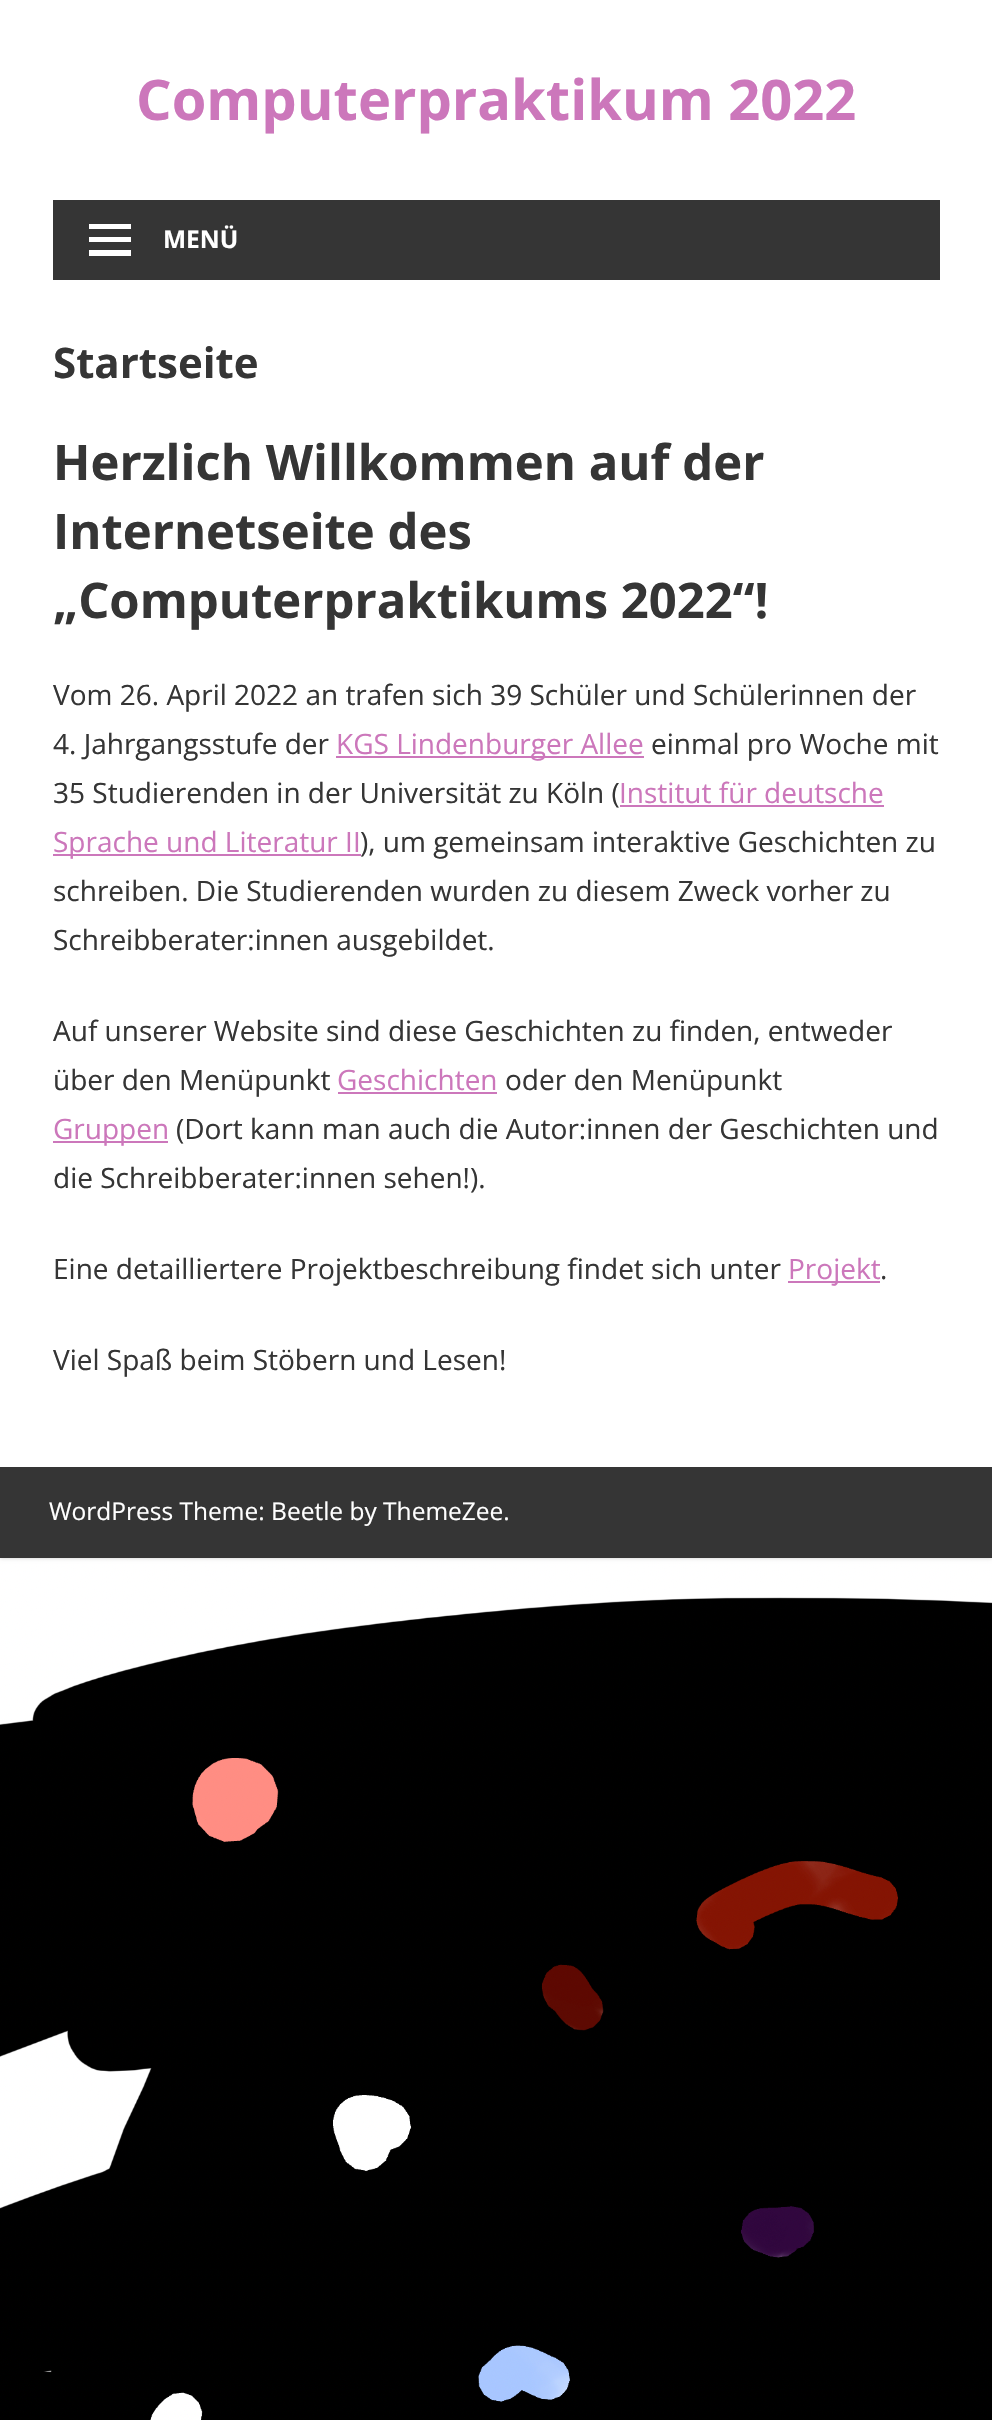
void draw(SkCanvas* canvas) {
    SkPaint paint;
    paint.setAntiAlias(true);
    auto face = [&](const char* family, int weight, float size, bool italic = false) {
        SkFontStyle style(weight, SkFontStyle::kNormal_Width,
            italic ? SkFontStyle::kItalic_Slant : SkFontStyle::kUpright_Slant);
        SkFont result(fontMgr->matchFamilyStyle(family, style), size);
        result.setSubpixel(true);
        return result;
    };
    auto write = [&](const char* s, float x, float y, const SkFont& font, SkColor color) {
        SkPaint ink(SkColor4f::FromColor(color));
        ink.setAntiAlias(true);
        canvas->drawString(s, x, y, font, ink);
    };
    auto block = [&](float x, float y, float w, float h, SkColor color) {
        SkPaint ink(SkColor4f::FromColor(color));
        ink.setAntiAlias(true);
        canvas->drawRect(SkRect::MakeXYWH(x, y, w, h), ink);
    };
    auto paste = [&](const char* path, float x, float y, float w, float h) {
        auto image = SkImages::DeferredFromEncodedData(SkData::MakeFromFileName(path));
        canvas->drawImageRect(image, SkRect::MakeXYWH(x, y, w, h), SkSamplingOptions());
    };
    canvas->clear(SK_ColorWHITE);
    paste("pic1.png", 0, 1558, 992, 862);
    paint.setColor(SkColorSetRGB(204, 204, 204));
    paint.setMaskFilter(SkMaskFilter::MakeBlur(kNormal_SkBlurStyle, 2));
    canvas->drawRect(SkRect::MakeXYWH(0, 0, 992, 1558), paint);
    paint.setMaskFilter(nullptr);
    block(0, 0, 992, 1467, SK_ColorWHITE);
    auto kFont1 = face("Open Sans", 700, 56);
    write("Computerpraktikum 2022", 136, 120, kFont1, SkColorSetRGB(204, 119, 187));
    block(53, 200, 887, 80, SkColorSetRGB(53, 53, 53));
    paint.setColor(SK_ColorWHITE);
    canvas->drawPath(SkPathBuilder().moveTo(89, 256).lineTo(89, 250).lineTo(131, 250).lineTo(131, 256).close().moveTo(89, 224).lineTo(131, 224).lineTo(131, 229).lineTo(89, 229).close().moveTo(89, 242).lineTo(89, 237).lineTo(131, 237).lineTo(131, 242).close().detach(), paint);
    auto kFont2 = face("Open Sans", 700, 24.5f);
    write("MENÜ", 163, 248, kFont2, SK_ColorWHITE);
    auto kFont3 = face("Open Sans", 700, 42);
    write("Startseite", 53, 378, kFont3, SkColorSetRGB(53, 53, 53));
    auto kFont4 = face("Open Sans", 700, 49);
    write("Herzlich Willkommen auf der", 53, 480, kFont4, SkColorSetRGB(53, 53, 53));
    write("Internetseite des", 53, 549, kFont4, SkColorSetRGB(53, 53, 53));
    write("„Computerpraktikums 2022“!", 53, 618, kFont4, SkColorSetRGB(53, 53, 53));
    auto kFont5 = face("Open Sans", 400, 28);
    write("Vom 26. April 2022 an trafen sich 39 Schüler und Schülerinnen der", 53, 705, kFont5, SkColorSetRGB(53, 53, 53));
    write("4. Jahrgangsstufe der", 53, 754, kFont5, SkColorSetRGB(53, 53, 53));
    block(336, 756, 308, 2, SkColorSetRGB(204, 119, 187));
    write("KGS Lindenburger Allee", 336, 754, kFont5, SkColorSetRGB(204, 119, 187));
    write("einmal pro Woche mit", 651, 754, kFont5, SkColorSetRGB(53, 53, 53));
    write("35 Studierenden in der Universität zu Köln (", 53, 803, kFont5, SkColorSetRGB(53, 53, 53));
    write("Institut für deutsche", 619, 803, kFont5, SkColorSetRGB(204, 119, 187));
    block(620, 805, 264, 2, SkColorSetRGB(204, 119, 187));
    block(53, 854, 308, 2, SkColorSetRGB(204, 119, 187));
    write("Sprache und Literatur II", 53, 852, kFont5, SkColorSetRGB(204, 119, 187));
    write("), um gemeinsam interaktive Geschichten zu", 360, 852, kFont5, SkColorSetRGB(53, 53, 53));
    write("schreiben. Die Studierenden wurden zu diesem Zweck vorher zu", 53, 901, kFont5, SkColorSetRGB(53, 53, 53));
    write("Schreibberater:innen ausgebildet.", 53, 950, kFont5, SkColorSetRGB(53, 53, 53));
    write("Auf unserer Website sind diese Geschichten zu finden, entweder", 53, 1041, kFont5, SkColorSetRGB(53, 53, 53));
    write("über den Menüpunkt", 53, 1090, kFont5, SkColorSetRGB(53, 53, 53));
    write("Geschichten", 337, 1090, kFont5, SkColorSetRGB(204, 119, 187));
    block(338, 1092, 159, 2, SkColorSetRGB(204, 119, 187));
    write("oder den Menüpunkt", 505, 1090, kFont5, SkColorSetRGB(53, 53, 53));
    block(53, 1141, 115, 2, SkColorSetRGB(204, 119, 187));
    write("Gruppen", 53, 1139, kFont5, SkColorSetRGB(204, 119, 187));
    write("(Dort kann man auch die Autor:innen der Geschichten und", 176, 1139, kFont5, SkColorSetRGB(53, 53, 53));
    write("die Schreibberater:innen sehen!).", 53, 1188, kFont5, SkColorSetRGB(53, 53, 53));
    write("Eine detailliertere Projektbeschreibung findet sich unter", 53, 1279, kFont5, SkColorSetRGB(53, 53, 53));
    block(788, 1281, 92, 2, SkColorSetRGB(204, 119, 187));
    write("Projekt", 788, 1279, kFont5, SkColorSetRGB(204, 119, 187));
    write(".", 880, 1279, kFont5, SkColorSetRGB(53, 53, 53));
    write("Viel Spaß beim Stöbern und Lesen!", 53, 1370, kFont5, SkColorSetRGB(53, 53, 53));
    block(0, 1467, 992, 91, SkColorSetRGB(53, 53, 53));
    auto kFont6 = face("Open Sans", 400, 24.5f);
    write("WordPress Theme: Beetle by ThemeZee.", 49, 1520, kFont6, SK_ColorWHITE);
}
